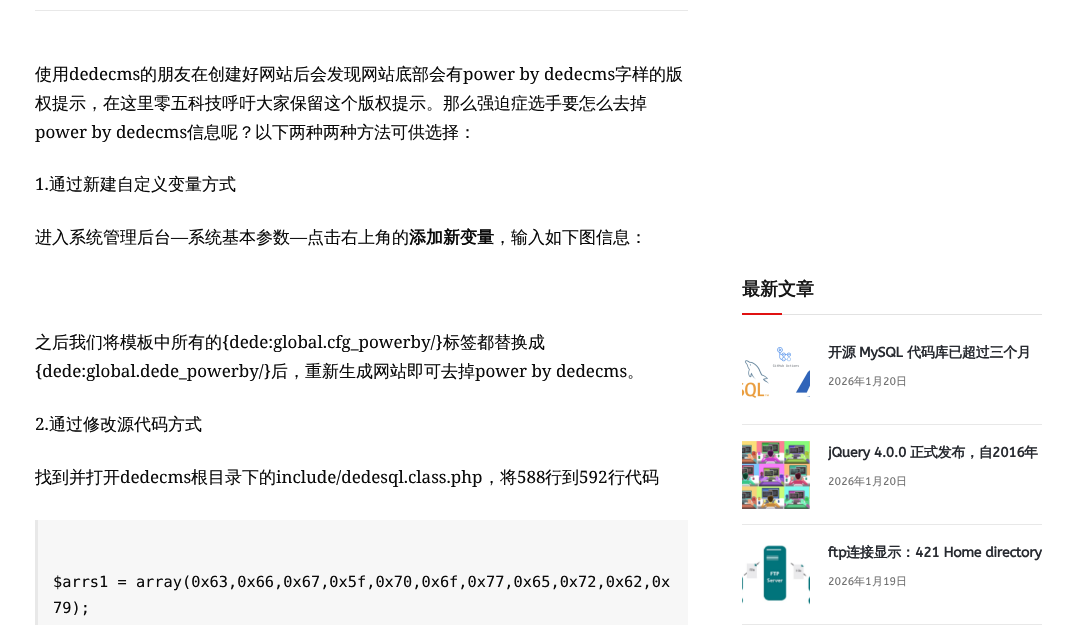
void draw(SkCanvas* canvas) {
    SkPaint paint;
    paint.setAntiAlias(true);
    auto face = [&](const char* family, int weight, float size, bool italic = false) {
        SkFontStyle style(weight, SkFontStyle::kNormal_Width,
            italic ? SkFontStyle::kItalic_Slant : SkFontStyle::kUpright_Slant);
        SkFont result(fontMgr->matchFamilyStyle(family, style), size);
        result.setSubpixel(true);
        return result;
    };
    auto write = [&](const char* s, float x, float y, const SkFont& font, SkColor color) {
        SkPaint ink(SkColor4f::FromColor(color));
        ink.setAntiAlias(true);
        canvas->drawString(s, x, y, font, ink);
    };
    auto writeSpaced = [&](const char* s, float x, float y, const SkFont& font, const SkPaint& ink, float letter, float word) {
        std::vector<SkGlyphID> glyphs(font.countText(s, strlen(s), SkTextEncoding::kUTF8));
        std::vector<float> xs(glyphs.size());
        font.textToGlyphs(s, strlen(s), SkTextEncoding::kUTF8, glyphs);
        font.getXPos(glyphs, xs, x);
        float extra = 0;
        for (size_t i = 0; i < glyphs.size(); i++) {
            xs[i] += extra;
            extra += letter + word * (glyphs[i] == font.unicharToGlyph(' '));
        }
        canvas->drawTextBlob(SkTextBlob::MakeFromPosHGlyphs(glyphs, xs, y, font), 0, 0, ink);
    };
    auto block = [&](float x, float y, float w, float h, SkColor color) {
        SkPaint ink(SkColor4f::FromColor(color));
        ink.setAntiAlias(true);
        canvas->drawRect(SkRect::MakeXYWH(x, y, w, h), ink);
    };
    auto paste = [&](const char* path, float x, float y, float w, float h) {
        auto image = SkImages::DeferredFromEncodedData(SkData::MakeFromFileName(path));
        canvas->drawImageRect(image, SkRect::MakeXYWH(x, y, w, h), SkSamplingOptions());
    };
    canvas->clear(SK_ColorWHITE);
    block(35, 10, 653, 1, SkColorSetRGB(232, 232, 232));
    auto kFont1 = face("WenQuanYi Zen Hei", 500, 17);
    write("使用", 35, 80, kFont1, SkColorSetRGB(10, 10, 10));
    auto kFont2 = face("Noto Serif", 400, 17);
    write("dedecms", 69, 80, kFont2, SkColorSetRGB(10, 10, 10));
    write("的朋友在创建好网站后会发现网站底部会有", 140, 80, kFont1, SkColorSetRGB(10, 10, 10));
    write("power by dedecms", 463, 80, kFont2, SkColorSetRGB(10, 10, 10));
    write("字样的版", 615, 80, kFont1, SkColorSetRGB(10, 10, 10));
    write("权提示，在这里零五科技呼吁大家保留这个版权提示。那么强迫症选手要怎么去掉", 35, 109, kFont1, SkColorSetRGB(10, 10, 10));
    write("power by dedecms", 35, 138, kFont2, SkColorSetRGB(10, 10, 10));
    write("信息呢？以下两种两种方法可供选择：", 187, 138, kFont1, SkColorSetRGB(10, 10, 10));
    write("1.", 35, 190, kFont2, SkColorSetRGB(10, 10, 10));
    write("通过新建自定义变量方式", 49, 190, kFont1, SkColorSetRGB(10, 10, 10));
    write("进入系统管理后台", 35, 243, kFont1, SkColorSetRGB(10, 10, 10));
    write("—", 171, 243, kFont2, SkColorSetRGB(10, 10, 10));
    write("系统基本参数", 188, 243, kFont1, SkColorSetRGB(10, 10, 10));
    write("—", 290, 243, kFont2, SkColorSetRGB(10, 10, 10));
    write("点击右上角的", 307, 243, kFont1, SkColorSetRGB(10, 10, 10));
    auto kFont3 = face("WenQuanYi Zen Hei", 700, 17);
    write("添加新变量", 409, 243, kFont3, SkColorSetRGB(10, 10, 10));
    write("，输入如下图信息：", 494, 243, kFont1, SkColorSetRGB(10, 10, 10));
    write("之后我们将模板中所有的", 35, 348, kFont1, SkColorSetRGB(10, 10, 10));
    write("{dede:global.cfg_powerby/}", 222, 348, kFont2, SkColorSetRGB(10, 10, 10));
    write("标签都替换成", 443, 348, kFont1, SkColorSetRGB(10, 10, 10));
    write("{dede:global.dede_powerby/}", 35, 377, kFont2, SkColorSetRGB(10, 10, 10));
    write("后，重新生成网站即可去掉", 271, 377, kFont1, SkColorSetRGB(10, 10, 10));
    write("power by dedecms", 475, 377, kFont2, SkColorSetRGB(10, 10, 10));
    write("。", 627, 377, kFont1, SkColorSetRGB(10, 10, 10));
    write("2.", 35, 430, kFont2, SkColorSetRGB(10, 10, 10));
    write("通过修改源代码方式", 49, 430, kFont1, SkColorSetRGB(10, 10, 10));
    write("找到并打开", 35, 483, kFont1, SkColorSetRGB(10, 10, 10));
    write("dedecms", 120, 483, kFont2, SkColorSetRGB(10, 10, 10));
    write("根目录下的", 191, 483, kFont1, SkColorSetRGB(10, 10, 10));
    write("include/dedesql.class.php", 276, 483, kFont2, SkColorSetRGB(10, 10, 10));
    write("，将", 483, 483, kFont1, SkColorSetRGB(10, 10, 10));
    write("588", 517, 483, kFont2, SkColorSetRGB(10, 10, 10));
    write("行到", 545, 483, kFont1, SkColorSetRGB(10, 10, 10));
    write("592", 579, 483, kFont2, SkColorSetRGB(10, 10, 10));
    write("行代码", 608, 483, kFont1, SkColorSetRGB(10, 10, 10));
    block(38, 520, 650, 105, SkColorSetRGB(247, 247, 247));
    paint.setColor(SkColorSetRGB(232, 232, 232));
    canvas->drawPath(SkPathBuilder().moveTo(35, 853).lineTo(35, 520).lineTo(38, 520).lineTo(38, 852).close().detach(), paint);
    auto kFont4 = face("DejaVu Sans Mono", 400, 15.3f);
    write("$arrs1 = array(0x63,0x66,0x67,0x5f,0x70,0x6f,0x77,0x65,0x72,0x62,0x", 53, 587, kFont4, SkColorSetRGB(10, 10, 10));
    write("79);", 53, 613, kFont4, SkColorSetRGB(10, 10, 10));
    block(782, 314, 260, 1, SkColorSetRGB(226, 226, 226));
    auto kFont5 = face("WenQuanYi Zen Hei", 700, 18);
    write("最新文章", 742, 295, kFont5, SkColorSetRGB(22, 22, 22));
    block(742, 313, 40, 2, SkColorSetRGB(224, 17, 17));
    paste("pic1.png", 742, 347, 68, 51);
    auto kFont6 = face("WenQuanYi Zen Hei", 700, 14);
    paint.setColor(SkColorSetRGB(39, 42, 48));
    writeSpaced("开源", 828, 357, kFont6, paint, -0.25f, 0);
    auto kFont7 = face("ABeeZee", 700, 14);
    writeSpaced("MySQL", 859, 357, kFont7, paint, -0.25f, 0);
    writeSpaced("代码库已超过三个月", 907, 357, kFont6, paint, -0.25f, 0);
    auto kFont8 = face("ABeeZee", 400, 11);
    write("2026", 828, 385, kFont8, SkColorSetRGB(112, 112, 112));
    auto kFont9 = face("WenQuanYi Zen Hei", 500, 11);
    write("年", 854, 385, kFont9, SkColorSetRGB(112, 112, 112));
    write("1", 865, 385, kFont8, SkColorSetRGB(112, 112, 112));
    write("月", 872, 385, kFont9, SkColorSetRGB(112, 112, 112));
    write("20", 883, 385, kFont8, SkColorSetRGB(112, 112, 112));
    write("日", 896, 385, kFont9, SkColorSetRGB(112, 112, 112));
    block(742, 424, 300, 1, SkColorSetRGB(232, 232, 232));
    paste("pic2.png", 742, 441, 68, 68);
    canvas->save();
    canvas->clipRect(SkRect::MakeXYWH(828, 443, 214, 20));
    writeSpaced("jQuery 4.0.0", 828, 457, kFont7, paint, -0.25f, 0);
    canvas->restore();
    writeSpaced("正式发布，自", 910, 457, kFont6, paint, -0.25f, 0);
    writeSpaced("2016", 992, 457, kFont7, paint, -0.25f, 0);
    writeSpaced("年", 1024, 457, kFont6, paint, -0.25f, 0);
    write("2026", 828, 485, kFont8, SkColorSetRGB(112, 112, 112));
    write("年", 854, 485, kFont9, SkColorSetRGB(112, 112, 112));
    write("1", 865, 485, kFont8, SkColorSetRGB(112, 112, 112));
    write("月", 872, 485, kFont9, SkColorSetRGB(112, 112, 112));
    write("20", 883, 485, kFont8, SkColorSetRGB(112, 112, 112));
    write("日", 896, 485, kFont9, SkColorSetRGB(112, 112, 112));
    block(742, 524, 300, 1, SkColorSetRGB(232, 232, 232));
    paste("pic3.png", 742, 545, 68, 60);
    writeSpaced("ftp", 828, 557, kFont7, paint, -0.25f, 0);
    writeSpaced("连接显示：", 846, 557, kFont6, paint, -0.25f, 0);
    writeSpaced("421 Home directory", 915, 557, kFont7, paint, -0.25f, 0);
    write("2026", 828, 585, kFont8, SkColorSetRGB(112, 112, 112));
    write("年", 854, 585, kFont9, SkColorSetRGB(112, 112, 112));
    write("1", 865, 585, kFont8, SkColorSetRGB(112, 112, 112));
    write("月", 872, 585, kFont9, SkColorSetRGB(112, 112, 112));
    write("19", 883, 585, kFont8, SkColorSetRGB(112, 112, 112));
    write("日", 896, 585, kFont9, SkColorSetRGB(112, 112, 112));
    block(742, 624, 300, 1, SkColorSetRGB(232, 232, 232));
}
